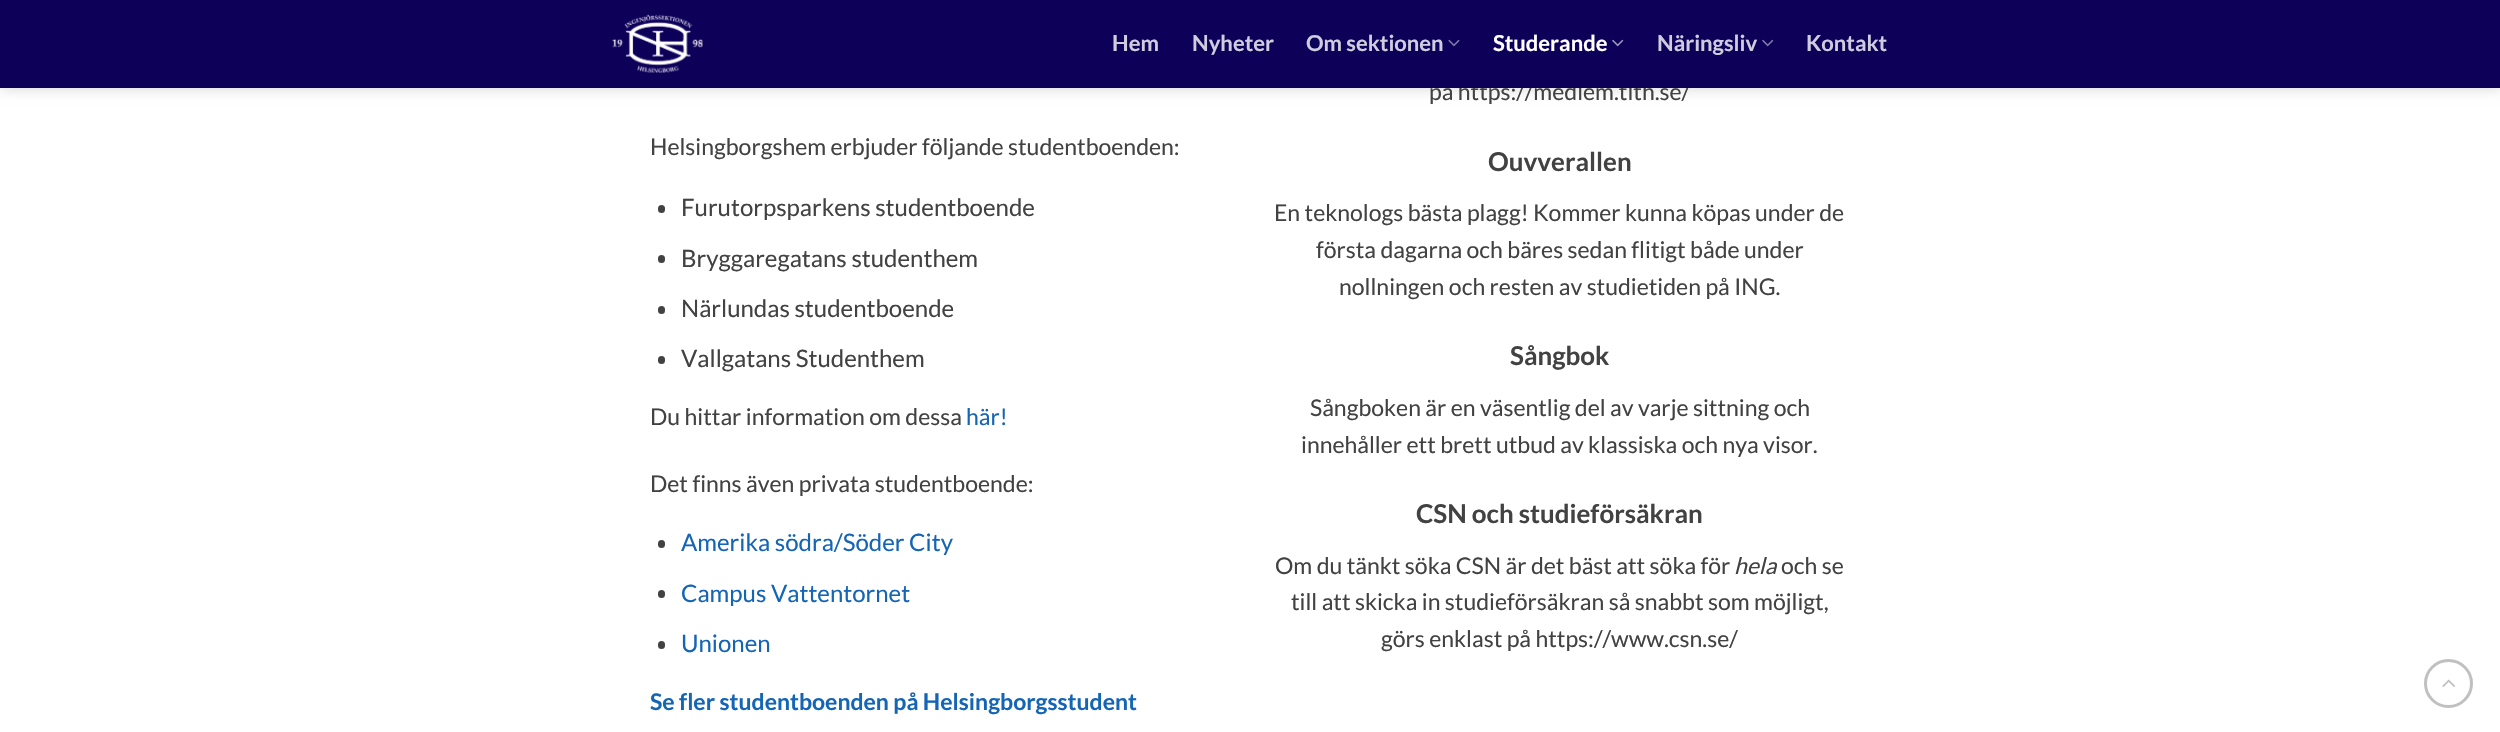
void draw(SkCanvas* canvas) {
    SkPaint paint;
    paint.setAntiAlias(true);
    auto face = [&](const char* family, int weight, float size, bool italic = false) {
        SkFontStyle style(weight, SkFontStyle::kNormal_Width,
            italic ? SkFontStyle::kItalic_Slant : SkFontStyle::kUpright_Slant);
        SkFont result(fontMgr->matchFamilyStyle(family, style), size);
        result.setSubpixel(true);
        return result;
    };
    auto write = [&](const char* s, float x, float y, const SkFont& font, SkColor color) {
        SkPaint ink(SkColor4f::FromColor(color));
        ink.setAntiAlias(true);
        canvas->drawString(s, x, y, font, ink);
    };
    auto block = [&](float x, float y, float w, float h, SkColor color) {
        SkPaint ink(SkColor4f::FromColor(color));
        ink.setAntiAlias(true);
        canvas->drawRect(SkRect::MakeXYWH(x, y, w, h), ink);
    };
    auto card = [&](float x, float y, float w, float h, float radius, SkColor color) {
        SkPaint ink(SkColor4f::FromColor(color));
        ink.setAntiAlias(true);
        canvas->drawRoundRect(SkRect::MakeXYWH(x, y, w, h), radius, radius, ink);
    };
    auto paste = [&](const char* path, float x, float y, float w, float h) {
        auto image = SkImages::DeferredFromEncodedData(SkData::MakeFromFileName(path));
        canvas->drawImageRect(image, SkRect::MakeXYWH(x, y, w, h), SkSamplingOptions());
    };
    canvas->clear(SK_ColorWHITE);
    paint.setColor(SkColorSetARGB(38, 0, 0, 0));
    paint.setMaskFilter(SkMaskFilter::MakeBlur(kNormal_SkBlurStyle, 6));
    canvas->drawRect(SkRect::MakeXYWH(1, 1, 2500, 88), paint);
    paint.setMaskFilter(nullptr);
    auto kFont1 = face("Lato", 400, 23);
    write("på https://medlem.tlth.se/", 1429, 100, kFont1, SkColorSetRGB(66, 66, 66));
    block(0, 0, 2500, 88, SkColorSetRGB(13, 0, 89));
    paste("pic1.png", 612, 14, 91, 59);
    auto kFont2 = face("Lato", 700, 22);
    write("Hem", 1112, 51, kFont2, SkColorSetRGB(207, 204, 222));
    write("Nyheter", 1192, 51, kFont2, SkColorSetRGB(207, 204, 222));
    write("Om sektionen", 1306, 51, kFont2, SkColorSetRGB(207, 204, 222));
    paste("pic2.png", 1448, 39, 12, 8);
    write("Studerande", 1493, 51, kFont2, SK_ColorWHITE);
    paste("pic3.png", 1612, 39, 12, 8);
    write("Näringsliv", 1657, 51, kFont2, SkColorSetRGB(207, 204, 222));
    paste("pic4.png", 1762, 39, 12, 8);
    write("Kontakt", 1806, 51, kFont2, SkColorSetRGB(207, 204, 222));
    write("Helsingborgshem erbjuder följande studentboenden:", 650, 155, kFont1, SkColorSetRGB(66, 66, 66));
    card(658, 205, 7, 8, 3.5f, SkColorSetRGB(66, 66, 66));
    auto kFont3 = face("Lato", 400, 24);
    write("Furutorpsparkens studentboende", 681, 216, kFont3, SkColorSetRGB(66, 66, 66));
    card(658, 255, 7, 8, 3.5f, SkColorSetRGB(66, 66, 66));
    write("Bryggaregatans studenthem", 681, 267, kFont3, SkColorSetRGB(66, 66, 66));
    card(658, 306, 7, 8, 3.5f, SkColorSetRGB(66, 66, 66));
    write("Närlundas studentboende", 681, 317, kFont3, SkColorSetRGB(66, 66, 66));
    card(658, 356, 7, 8, 3.5f, SkColorSetRGB(66, 66, 66));
    write("Vallgatans Studenthem", 681, 367, kFont3, SkColorSetRGB(66, 66, 66));
    write("Du hittar information om dessa", 650, 425, kFont1, SkColorSetRGB(66, 66, 66));
    write("här!", 966, 425, kFont1, SkColorSetRGB(21, 101, 182));
    write("Det finns även privata studentboende:", 650, 492, kFont1, SkColorSetRGB(66, 66, 66));
    card(658, 540, 7, 8, 3.5f, SkColorSetRGB(66, 66, 66));
    write("Amerika södra/Söder City", 681, 551, kFont3, SkColorSetRGB(21, 101, 182));
    card(658, 590, 7, 8, 3.5f, SkColorSetRGB(66, 66, 66));
    write("Campus Vattentornet", 681, 602, kFont3, SkColorSetRGB(21, 101, 182));
    card(658, 641, 7, 8, 3.5f, SkColorSetRGB(66, 66, 66));
    write("Unionen", 681, 652, kFont3, SkColorSetRGB(21, 101, 182));
    auto kFont4 = face("Lato", 700, 23);
    write("Se fler studentboenden på Helsingborgsstudent", 650, 710, kFont4, SkColorSetRGB(21, 101, 182));
    auto kFont5 = face("Lato", 700, 25.9f);
    write("Ouvverallen", 1488, 171, kFont5, SkColorSetRGB(66, 66, 66));
    write("En teknologs bästa plagg! Kommer kunna köpas under de", 1274, 221, kFont1, SkColorSetRGB(66, 66, 66));
    write("första dagarna och bäres sedan flitigt både under", 1316, 258, kFont1, SkColorSetRGB(66, 66, 66));
    write("nollningen och resten av studietiden på ING.", 1339, 295, kFont1, SkColorSetRGB(66, 66, 66));
    write("Sångbok", 1510, 365, kFont5, SkColorSetRGB(66, 66, 66));
    write("Sångboken är en väsentlig del av varje sittning och", 1310, 416, kFont1, SkColorSetRGB(66, 66, 66));
    write("innehåller ett brett utbud av klassiska och nya visor.", 1301, 453, kFont1, SkColorSetRGB(66, 66, 66));
    write("CSN och studieförsäkran", 1416, 523, kFont5, SkColorSetRGB(66, 66, 66));
    write("Om du tänkt söka CSN är det bäst att söka för", 1275, 574, kFont1, SkColorSetRGB(66, 66, 66));
    auto kFont6 = face("Lato", 400, 23, true);
    write("hela", 1734, 574, kFont6, SkColorSetRGB(66, 66, 66));
    write("och se", 1781, 574, kFont1, SkColorSetRGB(66, 66, 66));
    write("till att skicka in studieförsäkran så snabbt som möjligt,", 1291, 610, kFont1, SkColorSetRGB(66, 66, 66));
    write("görs enklast på https://www.csn.se/", 1381, 647, kFont1, SkColorSetRGB(66, 66, 66));
    paint.setStyle(SkPaint::kStroke_Style);
    paint.setStrokeWidth(3);
    paint.setColor(SkColorSetRGB(192, 192, 192));
    canvas->drawCircle(2448.5f, 683.5f, 23, paint);
    paste("pic5.png", 2442, 679, 13, 8);
}
